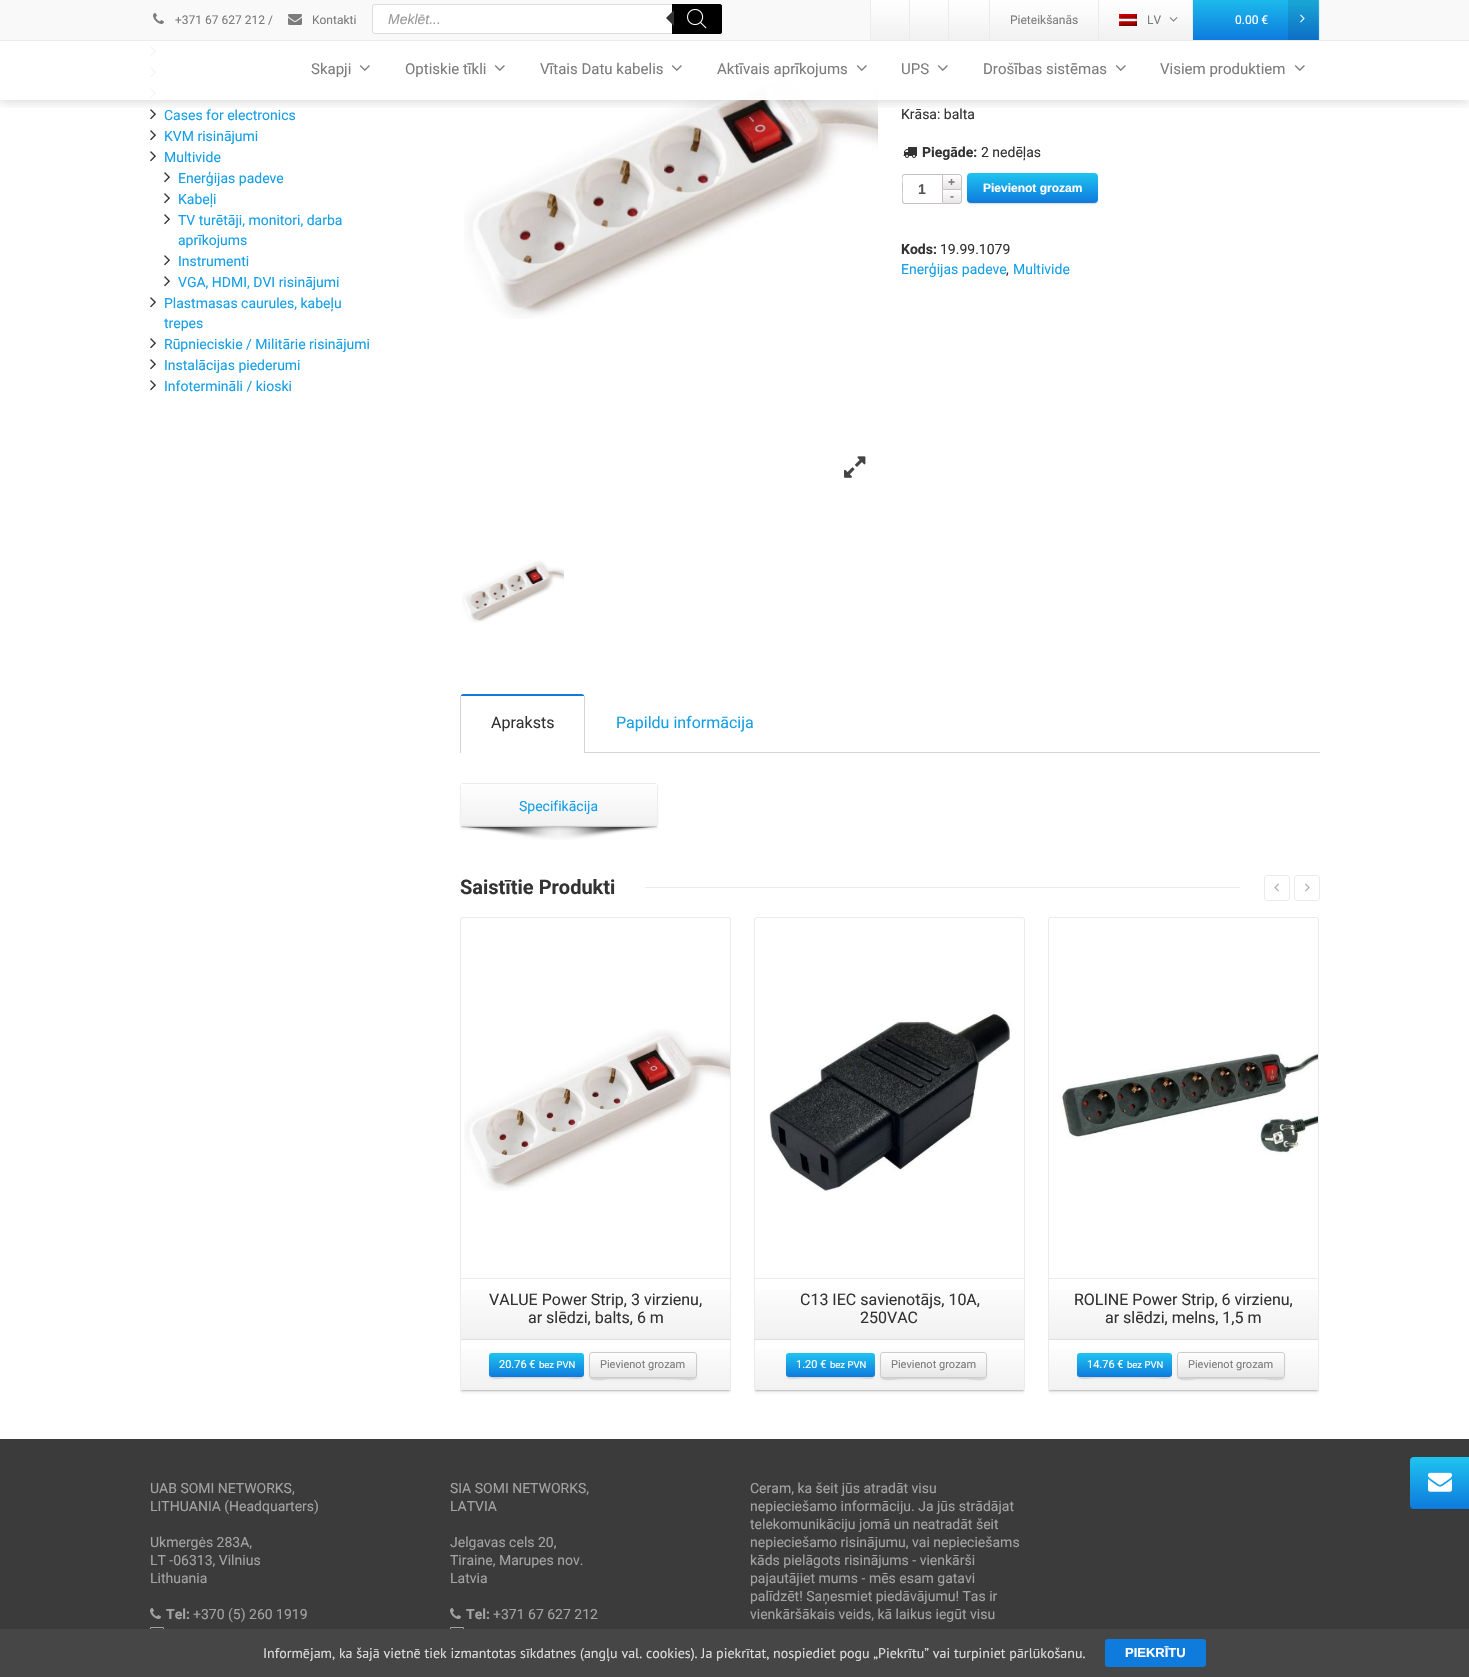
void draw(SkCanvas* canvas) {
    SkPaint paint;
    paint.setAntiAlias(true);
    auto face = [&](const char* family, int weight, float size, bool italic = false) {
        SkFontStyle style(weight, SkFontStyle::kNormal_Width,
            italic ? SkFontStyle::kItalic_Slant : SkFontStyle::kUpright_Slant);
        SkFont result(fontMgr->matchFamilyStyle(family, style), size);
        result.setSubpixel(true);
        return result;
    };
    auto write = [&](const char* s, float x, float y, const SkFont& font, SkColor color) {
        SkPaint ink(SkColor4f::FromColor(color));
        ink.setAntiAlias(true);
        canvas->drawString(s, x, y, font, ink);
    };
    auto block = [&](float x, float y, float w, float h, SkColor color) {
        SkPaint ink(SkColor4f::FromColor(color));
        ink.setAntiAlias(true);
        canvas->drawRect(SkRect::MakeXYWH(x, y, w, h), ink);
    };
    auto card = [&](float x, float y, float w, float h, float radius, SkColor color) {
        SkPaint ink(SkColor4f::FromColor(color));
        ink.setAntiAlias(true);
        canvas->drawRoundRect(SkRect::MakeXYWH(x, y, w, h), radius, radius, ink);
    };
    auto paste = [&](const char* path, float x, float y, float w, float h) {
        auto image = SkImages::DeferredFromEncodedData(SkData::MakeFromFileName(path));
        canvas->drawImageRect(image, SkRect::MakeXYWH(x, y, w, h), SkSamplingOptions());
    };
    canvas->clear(SK_ColorWHITE);
    paste("pic10.png", 150, 46, 6, 11);
    paste("pic10.png", 150, 67, 6, 11);
    paste("pic10.png", 150, 88, 6, 11);
    paste("pic10.png", 150, 109, 6, 11);
    paste("pic11.png", 464, 68, 414, 251);
    canvas->save();
    canvas->clipRect(SkRect::MakeXYWH(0, 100, 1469, 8));
    paint.setColor(SkColorSetARGB(38, 0, 0, 0));
    paint.setMaskFilter(SkMaskFilter::MakeBlur(kNormal_SkBlurStyle, 5));
    canvas->drawRect(SkRect::MakeXYWH(0, 2, 1469, 100), paint);
    paint.setMaskFilter(nullptr);
    canvas->restore();
    block(0, 0, 1469, 40, SkColorSetRGB(249, 249, 249));
    block(0, 40, 1469, 1, SkColorSetRGB(235, 235, 235));
    paste("pic1.png", 153, 13, 11, 11);
    auto kFont1 = face("Roboto", 400, 12);
    write("+371 67 627 212 /", 175, 24, kFont1, SkColorSetRGB(124, 124, 124));
    paste("pic2.png", 288, 14, 14, 11);
    write("Kontakti", 312, 24, kFont1, SkColorSetRGB(124, 124, 124));
    paint.setColor(SK_ColorWHITE);
    canvas->drawRoundRect(SkRect::MakeXYWH(372.5f, 4.5f, 349, 29), 2.5f, 2.5f, paint);
    paint.setStyle(SkPaint::kStroke_Style);
    paint.setStrokeWidth(1);
    paint.setColor(SkColorSetRGB(221, 221, 221));
    canvas->drawRoundRect(SkRect::MakeXYWH(372.5f, 4.5f, 349, 29), 2.5f, 2.5f, paint);
    auto kFont2 = face("Liberation Sans", 400, 14, true);
    write("Meklēt...", 388, 24, kFont2, SkColorSetRGB(153, 153, 153));
    paint.setStyle(SkPaint::kFill_Style);
    paint.setColor(SK_ColorBLACK);
    canvas->drawPath(SkPathBuilder().moveTo(672, 4).lineTo(720, 4).cubicTo(721, 4, 722, 5, 722, 6).lineTo(722, 32).cubicTo(722, 33, 721, 34, 720, 34).lineTo(672, 34).close().detach(), paint);
    paint.setColor(SkColorSetRGB(51, 51, 51));
    canvas->drawPath(SkPathBuilder().moveTo(674, 10).lineTo(674, 26).lineTo(666, 18).close().detach(), paint);
    paste("pic3.png", 687, 9, 20, 20);
    {
        const SkColor colors[] = {SK_ColorWHITE, SkColorSetRGB(241, 241, 241)};
        const float stops[] = {0, 1};
        const SkPoint ends[] = {{891, 0}, {891, 40}};
        paint.setShader(SkGradientShader::MakeLinear(ends, colors, stops, 2, SkTileMode::kClamp));
        paint.setAlpha(255);
    }
    canvas->drawRect(SkRect::MakeXYWH(871, 0, 38, 40), paint);
    block(870, 0, 1, 40, SkColorSetRGB(235, 235, 235));
    {
        const SkColor colors[] = {SK_ColorWHITE, SkColorSetRGB(241, 241, 241)};
        const float stops[] = {0, 1};
        const SkPoint ends[] = {{930, 0}, {930, 40}};
        paint.setShader(SkGradientShader::MakeLinear(ends, colors, stops, 2, SkTileMode::kClamp));
        paint.setAlpha(255);
    }
    canvas->drawRect(SkRect::MakeXYWH(910, 0, 38, 40), paint);
    block(909, 0, 1, 40, SkColorSetRGB(235, 235, 235));
    {
        const SkColor colors[] = {SK_ColorWHITE, SkColorSetRGB(241, 241, 241)};
        const float stops[] = {0, 1};
        const SkPoint ends[] = {{969, 0}, {969, 40}};
        paint.setShader(SkGradientShader::MakeLinear(ends, colors, stops, 2, SkTileMode::kClamp));
        paint.setAlpha(255);
    }
    canvas->drawRect(SkRect::MakeXYWH(949, 0, 40, 40), paint);
    block(989, 0, 1, 40, SkColorSetRGB(235, 235, 235));
    block(948, 0, 1, 40, SkColorSetRGB(235, 235, 235));
    block(1098, 0, 1, 40, SkColorSetRGB(235, 235, 235));
    {
        const SkColor colors[] = {SK_ColorWHITE, SkColorSetRGB(241, 241, 241)};
        const float stops[] = {0, 1};
        const SkPoint ends[] = {{1044, 0}, {1044, 40}};
        paint.setShader(SkGradientShader::MakeLinear(ends, colors, stops, 2, SkTileMode::kClamp));
        paint.setAlpha(255);
    }
    canvas->drawRect(SkRect::MakeXYWH(990, 0, 108, 40), paint);
    write("Pieteikšanās", 1010, 24, kFont1, SkColorSetRGB(124, 124, 124));
    block(1192, 0, 1, 40, SkColorSetRGB(235, 235, 235));
    {
        const SkColor colors[] = {SK_ColorWHITE, SkColorSetRGB(241, 241, 241)};
        const float stops[] = {0, 1};
        const SkPoint ends[] = {{1146, 0}, {1146, 40}};
        paint.setShader(SkGradientShader::MakeLinear(ends, colors, stops, 2, SkTileMode::kClamp));
        paint.setAlpha(255);
    }
    canvas->drawRect(SkRect::MakeXYWH(1099, 0, 93, 40), paint);
    paste("pic4.png", 1119, 14, 18, 12);
    write("LV", 1147, 24, kFont1, SkColorSetRGB(124, 124, 124));
    paste("pic5.png", 1169, 17, 9, 5);
    block(1319, 0, 1, 40, SkColorSetRGB(235, 235, 235));
    {
        const SkColor colors[] = {SkColorSetRGB(28, 186, 237), SkColorSetRGB(14, 123, 221)};
        const float stops[] = {0, 1};
        const SkPoint ends[] = {{1256, 0}, {1256, 40}};
        paint.setShader(SkGradientShader::MakeLinear(ends, colors, stops, 2, SkTileMode::kClamp));
        paint.setAlpha(255);
    }
    canvas->drawRect(SkRect::MakeXYWH(1193, 0, 126, 40), paint);
    write("0.00 €", 1235, 24, kFont1, SK_ColorWHITE);
    block(1288, 0, 30, 40, SkColorSetARGB(26, 0, 0, 0));
    paste("pic6.png", 1300, 14, 5, 9);
    block(150, 46, 724, 54, SkColorSetARGB(242, 255, 255, 255));
    auto kFont3 = face("Roboto", 400, 15);
    write("Skapji", 311, 74, kFont3, SkColorSetRGB(124, 124, 124));
    paste("pic7.png", 359, 65, 11, 6);
    write("Optiskie tīkli", 405, 74, kFont3, SkColorSetRGB(124, 124, 124));
    paste("pic7.png", 494, 65, 11, 6);
    write("Vītais Datu kabelis", 540, 74, kFont3, SkColorSetRGB(124, 124, 124));
    paste("pic7.png", 671, 65, 11, 6);
    write("Aktīvais aprīkojums", 717, 74, kFont3, SkColorSetRGB(124, 124, 124));
    paste("pic7.png", 856, 65, 11, 6);
    write("UPS", 901, 74, kFont3, SkColorSetRGB(124, 124, 124));
    paste("pic8.png", 937, 65, 11, 6);
    write("Drošības sistēmas", 983, 74, kFont3, SkColorSetRGB(124, 124, 124));
    paste("pic9.png", 1115, 65, 11, 6);
    write("Visiem produktiem", 1160, 74, kFont3, SkColorSetRGB(124, 124, 124));
    paste("pic7.png", 1294, 65, 11, 6);
    auto kFont4 = face("Roboto", 400, 14);
    write("Cases for electronics", 164, 120, kFont4, SkColorSetRGB(22, 159, 230));
    paste("pic10.png", 150, 130, 6, 11);
    write("KVM risinājumi", 164, 141, kFont4, SkColorSetRGB(22, 159, 230));
    paste("pic10.png", 150, 151, 6, 11);
    write("Multivide", 164, 162, kFont4, SkColorSetRGB(22, 159, 230));
    paste("pic10.png", 164, 172, 6, 11);
    write("Enerģijas padeve", 178, 183, kFont4, SkColorSetRGB(22, 159, 230));
    paste("pic10.png", 164, 193, 6, 11);
    write("Kabeļi", 178, 204, kFont4, SkColorSetRGB(22, 159, 230));
    paste("pic10.png", 164, 214, 6, 11);
    write("TV turētāji, monitori, darba", 178, 225, kFont4, SkColorSetRGB(22, 159, 230));
    write("aprīkojums", 178, 245, kFont4, SkColorSetRGB(22, 159, 230));
    paste("pic10.png", 164, 255, 6, 11);
    write("Instrumenti", 178, 266, kFont4, SkColorSetRGB(22, 159, 230));
    paste("pic10.png", 164, 276, 6, 11);
    write("VGA, HDMI, DVI risinājumi", 178, 287, kFont4, SkColorSetRGB(22, 159, 230));
    paste("pic10.png", 150, 297, 6, 11);
    write("Plastmasas caurules, kabeļu", 164, 308, kFont4, SkColorSetRGB(22, 159, 230));
    write("trepes", 164, 328, kFont4, SkColorSetRGB(22, 159, 230));
    paste("pic10.png", 150, 338, 6, 11);
    write("Rūpnieciskie / Militārie risinājumi", 164, 349, kFont4, SkColorSetRGB(22, 159, 230));
    paste("pic10.png", 150, 359, 6, 11);
    write("Instalācijas piederumi", 164, 370, kFont4, SkColorSetRGB(22, 159, 230));
    paste("pic10.png", 150, 380, 6, 11);
    write("Infotermināli / kioski", 164, 391, kFont4, SkColorSetRGB(22, 159, 230));
    paste("pic12.png", 844, 456, 22, 22);
    paste("pic13.png", 462, 561, 102, 62);
    write("Krāsa: balta", 901, 119, kFont4, SkColorSetRGB(51, 51, 51));
    paste("pic14.png", 903, 147, 14, 11);
    auto kFont5 = face("Roboto", 700, 14);
    write("Piegāde:", 922, 157, kFont5, SkColorSetRGB(51, 51, 51));
    write("2 nedēļas", 981, 157, kFont4, SkColorSetRGB(51, 51, 51));
    {
        const SkColor colors[] = {SK_ColorWHITE, SkColorSetRGB(230, 230, 230)};
        const float stops[] = {0, 1};
        const SkPoint ends[] = {{952, 175}, {952, 189}};
        paint.setShader(SkGradientShader::MakeLinear(ends, colors, stops, 2, SkTileMode::kClamp));
        paint.setAlpha(255);
    }
    canvas->drawRect(SkRect::MakeXYWH(943, 176, 19, 13), paint);
    paint.setShader(nullptr);
    paint.setColor(SkColorSetRGB(199, 192, 199));
    canvas->drawPath(SkPathBuilder(SkPathFillType::kEvenOdd).moveTo(942, 174).lineTo(959, 174).cubicTo(960.5f, 174, 962, 175.5f, 962, 177).lineTo(962, 189).lineTo(942, 189).close().moveTo(943, 175).lineTo(959, 175).cubicTo(960, 175, 961, 176, 961, 177).lineTo(961, 189).lineTo(943, 189).close().detach(), paint);
    auto kFont6 = face("Liberation Sans", 700, 12);
    write("+", 948, 186, kFont6, SkColorSetRGB(124, 124, 124));
    canvas->drawPath(SkPathBuilder(SkPathFillType::kEvenOdd).moveTo(905, 174).lineTo(942, 174).lineTo(942, 204).lineTo(905, 204).cubicTo(903, 204, 902, 203, 902, 201).lineTo(902, 177).cubicTo(902, 175, 903, 174, 905, 174).close().moveTo(905, 175).lineTo(942, 175).lineTo(942, 203).lineTo(904, 203).cubicTo(902, 201, 903, 188, 903, 185).cubicTo(903, 183, 901, 175, 905, 175).close().detach(), paint);
    auto kFont7 = face("Liberation Sans", 700, 14);
    write("1", 918, 194, kFont7, SkColorSetRGB(85, 85, 85));
    {
        const SkColor colors[] = {SK_ColorWHITE, SkColorSetRGB(230, 230, 230)};
        const float stops[] = {0, 1};
        const SkPoint ends[] = {{952, 190}, {952, 203}};
        paint.setShader(SkGradientShader::MakeLinear(ends, colors, stops, 2, SkTileMode::kClamp));
        paint.setAlpha(255);
    }
    canvas->drawRect(SkRect::MakeXYWH(943, 191, 19, 12), paint);
    paint.setStyle(SkPaint::kStroke_Style);
    paint.setShader(nullptr);
    paint.setColor(SkColorSetRGB(199, 192, 199));
    canvas->drawPath(SkPathBuilder().moveTo(942.5f, 189.5f).lineTo(961.5f, 189.5f).lineTo(961.5f, 201).cubicTo(961.5f, 202.5f, 960.5f, 203.5f, 959, 203.5f).lineTo(942.5f, 203.5f).close().detach(), paint);
    write("-", 950, 200, kFont6, SkColorSetRGB(124, 124, 124));
    paint.setStyle(SkPaint::kFill_Style);
    paint.setColor(SkColorSetRGB(235, 235, 235));
    canvas->drawPath(SkPathBuilder().moveTo(967, 199).lineTo(967, 200).cubicTo(967, 202, 969, 204, 971, 204).lineTo(1094, 204).cubicTo(1096, 204, 1098, 202, 1098, 200).lineTo(1098, 199).cubicTo(1098, 201, 1096, 203, 1094, 203).lineTo(971, 203).cubicTo(969, 203, 967, 201, 967, 199).close().detach(), paint);
    paint.setColor(SkColorSetARGB(13, 0, 0, 0));
    paint.setMaskFilter(SkMaskFilter::MakeBlur(kNormal_SkBlurStyle, 1));
    canvas->drawRoundRect(SkRect::MakeXYWH(967, 175, 131, 30), 4, 4, paint);
    paint.setMaskFilter(nullptr);
    {
        const SkColor colors[] = {SkColorSetRGB(31, 196, 240), SkColorSetRGB(14, 122, 221)};
        const float stops[] = {0, 1};
        const SkPoint ends[] = {{1033, 173}, {1033, 203}};
        paint.setShader(SkGradientShader::MakeLinear(ends, colors, stops, 2, SkTileMode::kClamp));
        paint.setAlpha(255);
    }
    canvas->drawRoundRect(SkRect::MakeXYWH(967, 173, 131, 30), 4, 4, paint);
    write("Pievienot grozam", 983, 192, kFont6, SK_ColorWHITE);
    write("Kods:", 901, 254, kFont5, SkColorSetRGB(51, 51, 51));
    write("19.99.1079", 940, 254, kFont4, SkColorSetRGB(51, 51, 51));
    write("Enerģijas padeve", 901, 274, kFont4, SkColorSetRGB(22, 159, 230));
    write(",", 1006, 274, kFont4, SkColorSetRGB(51, 51, 51));
    write("Multivide", 1013, 274, kFont4, SkColorSetRGB(22, 159, 230));
    paint.setShader(nullptr);
    paint.setColor(SkColorSetRGB(14, 123, 221));
    canvas->drawPath(SkPathBuilder().moveTo(463, 694).lineTo(461, 695).lineTo(461, 696).lineTo(463, 696).lineTo(562, 696).lineTo(582, 696).lineTo(584, 696).lineTo(584, 695).lineTo(582, 694).close().detach(), paint);
    canvas->save();
    canvas->clipRect(SkRect::MakeXYWH(460, 694, 860, 59));
    paint.setColor(SkColorSetRGB(212, 212, 212));
    canvas->drawPath(SkPathBuilder().moveTo(585, 826).lineTo(585, 697).lineTo(584, 695).lineTo(584, 696).lineTo(584, 804).cubicTo(584, 806, 587, 829, 582, 829).cubicTo(584, 829, 585, 828, 585, 826).close().detach(), paint);
    canvas->drawPath(SkPathBuilder().moveTo(460, 697).lineTo(460, 826).cubicTo(460, 828, 461, 829, 463, 829).cubicTo(458, 829, 461, 806, 461, 804).lineTo(461, 696).lineTo(461, 695).close().detach(), paint);
    canvas->restore();
    auto kFont8 = face("Roboto", 400, 16);
    write("Apraksts", 491, 728, kFont8, SkColorSetRGB(51, 51, 51));
    write("Papildu informācija", 616, 728, kFont8, SkColorSetRGB(22, 159, 230));
    block(585, 752, 735, 1, SkColorSetRGB(212, 212, 212));
    paint.setColor(SkColorSetRGB(237, 237, 237));
    canvas->drawPath(SkPathBuilder().moveTo(460, 824).cubicTo(460, 826, 461, 828, 463, 828).lineTo(655, 828).cubicTo(657, 828, 658, 826, 658, 824).cubicTo(658, 826, 657, 827, 655, 827).lineTo(462, 827).lineTo(461, 826).close().detach(), paint);
    paint.setColor(SkColorSetARGB(8, 0, 0, 0));
    canvas->drawPath(SkPathBuilder().moveTo(460, 824).lineTo(460, 827).cubicTo(460, 829, 461, 830, 463, 830).lineTo(655, 830).cubicTo(657, 830, 658, 829, 658, 827).lineTo(658, 824).cubicTo(658, 826, 657, 827, 655, 827).lineTo(462, 827).lineTo(461, 826).close().detach(), paint);
    card(460, 783, 198, 44, 3, SK_ColorWHITE);
    paint.setStyle(SkPaint::kStroke_Style);
    paint.setColor(SkColorSetARGB(56, 0, 0, 0));
    canvas->drawPath(SkPathBuilder().moveTo(657, 826).lineTo(655, 826.5f).lineTo(463, 826.5f).lineTo(461, 826).detach(), paint);
    paint.setColor(SkColorSetRGB(235, 235, 235));
    canvas->drawPath(SkPathBuilder().moveTo(461, 826).cubicTo(459.5f, 824, 460.5f, 808, 460.5f, 805).lineTo(460.5f, 792.5f).cubicTo(460.5f, 791, 459, 783.5f, 463, 783.5f).lineTo(655, 783.5f).cubicTo(659, 783.5f, 657.5f, 791, 657.5f, 792.5f).lineTo(657.5f, 805).cubicTo(657.5f, 808, 658.5f, 824, 657, 826).detach(), paint);
    paint.setStyle(SkPaint::kFill_Style);
    {
        const SkColor colors[] = {SK_ColorWHITE, SkColorSetRGB(241, 241, 241)};
        const float stops[] = {0, 1};
        const SkPoint ends[] = {{559, 784}, {559, 825}};
        paint.setShader(SkGradientShader::MakeLinear(ends, colors, stops, 2, SkTileMode::kClamp));
        paint.setAlpha(255);
    }
    canvas->drawRect(SkRect::MakeXYWH(461, 784, 196, 41), paint);
    block(461, 825, 196, 1, SkColorSetRGB(235, 235, 235));
    write("Specifikācija", 519, 811, kFont4, SkColorSetRGB(22, 159, 230));
    paste("pic15.png", 462, 827, 193, 13);
    auto kFont9 = face("Roboto", 700, 20);
    write("Saistītie Produkti", 460, 894, kFont9, SkColorSetRGB(51, 51, 51));
    block(645, 887, 595, 1, SkColorSetRGB(235, 235, 235));
    paint.setStyle(SkPaint::kStroke_Style);
    paint.setShader(nullptr);
    paint.setColor(SkColorSetRGB(235, 235, 235));
    canvas->drawRoundRect(SkRect::MakeXYWH(1264.5f, 875.5f, 25, 25), 2.5f, 2.5f, paint);
    paste("pic16.png", 1274, 883, 5, 9);
    canvas->drawRoundRect(SkRect::MakeXYWH(1294.5f, 875.5f, 25, 25), 2.5f, 2.5f, paint);
    paste("pic17.png", 1305, 883, 5, 9);
    paint.setStyle(SkPaint::kFill_Style);
    paint.setColor(SkColorSetRGB(237, 237, 237));
    canvas->drawPath(SkPathBuilder().moveTo(460, 1388).lineTo(460, 1389).cubicTo(460, 1391, 461, 1392, 463, 1392).lineTo(728, 1392).cubicTo(730, 1392, 731, 1391, 731, 1389).lineTo(731, 1388).cubicTo(731, 1390, 730, 1391, 728, 1391).lineTo(463, 1391).cubicTo(461, 1391, 460, 1390, 460, 1388).close().detach(), paint);
    paint.setColor(SkColorSetARGB(8, 0, 0, 0));
    canvas->drawPath(SkPathBuilder().moveTo(460, 1388).cubicTo(460, 1390, 460, 1393, 462, 1394).lineTo(728, 1394).cubicTo(731, 1394, 731, 1390, 731, 1388).cubicTo(731, 1390, 730, 1391, 728, 1391).lineTo(463, 1391).cubicTo(461, 1391, 460, 1390, 460, 1388).close().detach(), paint);
    card(460, 917, 271, 474, 3, SK_ColorWHITE);
    paint.setStyle(SkPaint::kStroke_Style);
    paint.setColor(SkColorSetARGB(56, 0, 0, 0));
    canvas->drawPath(SkPathBuilder().moveTo(730, 1390).lineTo(728, 1390.5f).lineTo(463, 1390.5f).lineTo(461, 1390).detach(), paint);
    paint.setColor(SkColorSetRGB(235, 235, 235));
    canvas->drawPath(SkPathBuilder().moveTo(461, 1390).lineTo(460.5f, 1388).lineTo(460.5f, 920).lineTo(461, 918).lineTo(463, 917.5f).lineTo(728, 917.5f).lineTo(730, 918).lineTo(730.5f, 920).lineTo(730.5f, 1388).lineTo(730, 1390).detach(), paint);
    block(461, 1278, 269, 1, SkColorSetRGB(235, 235, 235));
    paste("pic18.png", 464, 1029, 266, 162);
    paint.setStyle(SkPaint::kFill_Style);
    {
        const SkColor colors[] = {SK_ColorWHITE, SkColorSetRGB(241, 241, 241)};
        const float stops[] = {0, 1};
        const SkPoint ends[] = {{596, 1279}, {596, 1339}};
        paint.setShader(SkGradientShader::MakeLinear(ends, colors, stops, 2, SkTileMode::kClamp));
        paint.setAlpha(255);
    }
    canvas->drawRect(SkRect::MakeXYWH(461, 1290, 269, 49), paint);
    write("VALUE Power Strip, 3 virzienu,", 489, 1305, kFont8, SkColorSetRGB(51, 51, 51));
    write("ar slēdzi, balts, 6 m", 528, 1323, kFont8, SkColorSetRGB(51, 51, 51));
    {
        const SkColor colors[] = {SK_ColorWHITE, SkColorSetRGB(241, 241, 241)};
        const float stops[] = {0, 1};
        const SkPoint ends[] = {{596, 1340}, {596, 1390}};
        paint.setShader(SkGradientShader::MakeLinear(ends, colors, stops, 2, SkTileMode::kClamp));
        paint.setAlpha(255);
    }
    canvas->drawRect(SkRect::MakeXYWH(461, 1349, 269, 41), paint);
    block(461, 1339, 269, 1, SkColorSetRGB(223, 223, 223));
    paint.setShader(nullptr);
    paint.setColor(SkColorSetRGB(225, 225, 225));
    canvas->drawPath(SkPathBuilder().moveTo(489, 1374).cubicTo(489, 1382, 504, 1378, 507, 1378).lineTo(566, 1378).cubicTo(569, 1378, 584, 1382, 584, 1374).cubicTo(584, 1376, 583, 1377, 581, 1377).lineTo(492, 1377).cubicTo(490, 1377, 489, 1376, 489, 1374).close().detach(), paint);
    paint.setColor(SkColorSetARGB(13, 0, 0, 0));
    paint.setMaskFilter(SkMaskFilter::MakeBlur(kNormal_SkBlurStyle, 1));
    canvas->drawRoundRect(SkRect::MakeXYWH(489, 1355, 95, 24), 3, 3, paint);
    paint.setMaskFilter(nullptr);
    {
        const SkColor colors[] = {SkColorSetRGB(31, 196, 240), SkColorSetRGB(14, 122, 221)};
        const float stops[] = {0, 1};
        const SkPoint ends[] = {{537, 1353}, {537, 1377}};
        paint.setShader(SkGradientShader::MakeLinear(ends, colors, stops, 2, SkTileMode::kClamp));
        paint.setAlpha(255);
    }
    canvas->drawRoundRect(SkRect::MakeXYWH(489, 1353, 95, 24), 3, 3, paint);
    auto kFont10 = face("Roboto", 400, 11);
    write("20.76 €", 499, 1368, kFont10, SK_ColorWHITE);
    auto kFont11 = face("Roboto", 400, 9.5f);
    write("bez PVN", 539, 1368, kFont11, SK_ColorWHITE);
    paint.setShader(nullptr);
    paint.setColor(SkColorSetRGB(224, 224, 224));
    canvas->drawPath(SkPathBuilder().moveTo(589, 1375).cubicTo(589, 1384, 607, 1379, 609, 1379).lineTo(677, 1379).cubicTo(679, 1379, 697, 1384, 697, 1375).cubicTo(697, 1377, 696, 1378, 694, 1378).lineTo(592, 1378).cubicTo(590, 1378, 589, 1377, 589, 1375).close().detach(), paint);
    paint.setColor(SkColorSetARGB(13, 0, 0, 0));
    paint.setMaskFilter(SkMaskFilter::MakeBlur(kNormal_SkBlurStyle, 1));
    canvas->drawRoundRect(SkRect::MakeXYWH(589, 1354, 108, 26), 3, 3, paint);
    paint.setMaskFilter(nullptr);
    canvas->save();
    canvas->clipPath(SkPathBuilder().moveTo(592, 1352).lineTo(694, 1352).cubicTo(695.5f, 1352, 697, 1353.5f, 697, 1355).lineTo(697, 1375).cubicTo(697, 1376.5f, 695.5f, 1378, 694, 1378).lineTo(592, 1378).cubicTo(590.5f, 1378, 589, 1376.5f, 589, 1375).lineTo(589, 1355).cubicTo(589, 1353.5f, 590.5f, 1352, 592, 1352).close().detach(), true);
    {
        const SkColor colors[] = {SK_ColorWHITE, SkColorSetRGB(230, 230, 230)};
        const float stops[] = {0, 1};
        const SkPoint ends[] = {{643, 1353}, {643, 1377}};
        paint.setShader(SkGradientShader::MakeLinear(ends, colors, stops, 2, SkTileMode::kClamp));
        paint.setAlpha(255);
    }
    canvas->drawRect(SkRect::MakeXYWH(589, 1353, 108, 24), paint);
    canvas->restore();
    paint.setStyle(SkPaint::kStroke_Style);
    paint.setShader(nullptr);
    paint.setColor(SkColorSetRGB(204, 204, 204));
    canvas->drawRoundRect(SkRect::MakeXYWH(589.5f, 1352.5f, 107, 25), 2.5f, 2.5f, paint);
    write("Pievienot grozam", 600, 1368, kFont10, SkColorSetRGB(124, 124, 124));
    paint.setStyle(SkPaint::kFill_Style);
    paint.setColor(SkColorSetRGB(237, 237, 237));
    canvas->drawPath(SkPathBuilder().moveTo(754, 1388).lineTo(754, 1389).cubicTo(754, 1391, 755, 1392, 757, 1392).lineTo(1022, 1392).cubicTo(1024, 1392, 1025, 1391, 1025, 1389).lineTo(1025, 1388).cubicTo(1025, 1390, 1024, 1391, 1022, 1391).lineTo(757, 1391).cubicTo(755, 1391, 754, 1390, 754, 1388).close().detach(), paint);
    paint.setColor(SkColorSetARGB(8, 0, 0, 0));
    canvas->drawPath(SkPathBuilder().moveTo(754, 1388).cubicTo(754, 1390, 754, 1393, 756, 1394).lineTo(1022, 1394).cubicTo(1025, 1394, 1025, 1390, 1025, 1388).cubicTo(1025, 1390, 1024, 1391, 1022, 1391).lineTo(757, 1391).cubicTo(755, 1391, 754, 1390, 754, 1388).close().detach(), paint);
    card(754, 917, 271, 474, 3, SK_ColorWHITE);
    paint.setStyle(SkPaint::kStroke_Style);
    paint.setColor(SkColorSetARGB(56, 0, 0, 0));
    canvas->drawPath(SkPathBuilder().moveTo(1024, 1390).lineTo(1022, 1390.5f).lineTo(757, 1390.5f).lineTo(755, 1390).detach(), paint);
    paint.setColor(SkColorSetRGB(235, 235, 235));
    canvas->drawPath(SkPathBuilder().moveTo(755, 1390).lineTo(754.5f, 1388).lineTo(754.5f, 920).lineTo(755, 918).lineTo(757, 917.5f).lineTo(1022, 917.5f).lineTo(1024, 918).lineTo(1024.5f, 920).lineTo(1024.5f, 1388).lineTo(1024, 1390).detach(), paint);
    block(755, 1278, 269, 1, SkColorSetRGB(235, 235, 235));
    paste("pic19.png", 769, 1011, 242, 181);
    paint.setStyle(SkPaint::kFill_Style);
    {
        const SkColor colors[] = {SK_ColorWHITE, SkColorSetRGB(241, 241, 241)};
        const float stops[] = {0, 1};
        const SkPoint ends[] = {{890, 1279}, {890, 1339}};
        paint.setShader(SkGradientShader::MakeLinear(ends, colors, stops, 2, SkTileMode::kClamp));
        paint.setAlpha(255);
    }
    canvas->drawRect(SkRect::MakeXYWH(755, 1290, 269, 49), paint);
    write("C13 IEC savienotājs, 10A,", 800, 1305, kFont8, SkColorSetRGB(51, 51, 51));
    write("250VAC", 860, 1323, kFont8, SkColorSetRGB(51, 51, 51));
    {
        const SkColor colors[] = {SK_ColorWHITE, SkColorSetRGB(241, 241, 241)};
        const float stops[] = {0, 1};
        const SkPoint ends[] = {{890, 1340}, {890, 1390}};
        paint.setShader(SkGradientShader::MakeLinear(ends, colors, stops, 2, SkTileMode::kClamp));
        paint.setAlpha(255);
    }
    canvas->drawRect(SkRect::MakeXYWH(755, 1349, 269, 41), paint);
    block(755, 1339, 269, 1, SkColorSetRGB(223, 223, 223));
    paint.setShader(nullptr);
    paint.setColor(SkColorSetRGB(225, 225, 225));
    canvas->drawPath(SkPathBuilder().moveTo(786, 1374).cubicTo(786, 1382, 799, 1378, 803, 1378).lineTo(858, 1378).cubicTo(862, 1378, 875, 1382, 875, 1374).cubicTo(875, 1376, 874, 1377, 872, 1377).lineTo(789, 1377).cubicTo(787, 1377, 786, 1376, 786, 1374).close().detach(), paint);
    paint.setColor(SkColorSetARGB(13, 0, 0, 0));
    paint.setMaskFilter(SkMaskFilter::MakeBlur(kNormal_SkBlurStyle, 1));
    canvas->drawRoundRect(SkRect::MakeXYWH(786, 1355, 89, 24), 3, 3, paint);
    paint.setMaskFilter(nullptr);
    {
        const SkColor colors[] = {SkColorSetRGB(31, 196, 240), SkColorSetRGB(14, 122, 221)};
        const float stops[] = {0, 1};
        const SkPoint ends[] = {{831, 1353}, {831, 1377}};
        paint.setShader(SkGradientShader::MakeLinear(ends, colors, stops, 2, SkTileMode::kClamp));
        paint.setAlpha(255);
    }
    canvas->drawRoundRect(SkRect::MakeXYWH(786, 1353, 89, 24), 3, 3, paint);
    write("1.20 €", 796, 1368, kFont10, SK_ColorWHITE);
    write("bez PVN", 830, 1368, kFont11, SK_ColorWHITE);
    paint.setShader(nullptr);
    paint.setColor(SkColorSetRGB(224, 224, 224));
    canvas->drawPath(SkPathBuilder().moveTo(880, 1375).cubicTo(880, 1384, 897, 1379, 900, 1379).lineTo(967, 1379).cubicTo(970, 1379, 987, 1384, 987, 1375).cubicTo(987, 1377, 986, 1378, 984, 1378).lineTo(883, 1378).cubicTo(881, 1378, 880, 1377, 880, 1375).close().detach(), paint);
    paint.setColor(SkColorSetARGB(13, 0, 0, 0));
    paint.setMaskFilter(SkMaskFilter::MakeBlur(kNormal_SkBlurStyle, 1));
    canvas->drawRoundRect(SkRect::MakeXYWH(880, 1354, 107, 26), 3, 3, paint);
    paint.setMaskFilter(nullptr);
    canvas->save();
    canvas->clipPath(SkPathBuilder().moveTo(883, 1352).lineTo(984, 1352).cubicTo(985.5f, 1352, 987, 1353.5f, 987, 1355).lineTo(987, 1375).cubicTo(987, 1376.5f, 985.5f, 1378, 984, 1378).lineTo(883, 1378).cubicTo(881.5f, 1378, 880, 1376.5f, 880, 1375).lineTo(880, 1355).cubicTo(880, 1353.5f, 881.5f, 1352, 883, 1352).close().detach(), true);
    {
        const SkColor colors[] = {SK_ColorWHITE, SkColorSetRGB(230, 230, 230)};
        const float stops[] = {0, 1};
        const SkPoint ends[] = {{934, 1353}, {934, 1377}};
        paint.setShader(SkGradientShader::MakeLinear(ends, colors, stops, 2, SkTileMode::kClamp));
        paint.setAlpha(255);
    }
    canvas->drawRect(SkRect::MakeXYWH(880, 1353, 107, 24), paint);
    canvas->restore();
    paint.setStyle(SkPaint::kStroke_Style);
    paint.setShader(nullptr);
    paint.setColor(SkColorSetRGB(204, 204, 204));
    canvas->drawRoundRect(SkRect::MakeXYWH(880.5f, 1352.5f, 106, 25), 2.5f, 2.5f, paint);
    write("Pievienot grozam", 891, 1368, kFont10, SkColorSetRGB(124, 124, 124));
    paint.setStyle(SkPaint::kFill_Style);
    paint.setColor(SkColorSetRGB(237, 237, 237));
    canvas->drawPath(SkPathBuilder().moveTo(1048, 1388).lineTo(1048, 1389).cubicTo(1048, 1391, 1049, 1392, 1051, 1392).lineTo(1316, 1392).cubicTo(1318, 1392, 1319, 1391, 1319, 1389).lineTo(1319, 1388).cubicTo(1319, 1390, 1318, 1391, 1316, 1391).lineTo(1051, 1391).cubicTo(1049, 1391, 1048, 1390, 1048, 1388).close().detach(), paint);
    paint.setColor(SkColorSetARGB(8, 0, 0, 0));
    canvas->drawPath(SkPathBuilder().moveTo(1048, 1388).cubicTo(1048, 1390, 1048, 1393, 1050, 1394).lineTo(1316, 1394).cubicTo(1319, 1394, 1319, 1390, 1319, 1388).cubicTo(1319, 1390, 1318, 1391, 1316, 1391).lineTo(1051, 1391).cubicTo(1049, 1391, 1048, 1390, 1048, 1388).close().detach(), paint);
    card(1048, 917, 271, 474, 3, SK_ColorWHITE);
    paint.setStyle(SkPaint::kStroke_Style);
    paint.setColor(SkColorSetARGB(56, 0, 0, 0));
    canvas->drawPath(SkPathBuilder().moveTo(1318, 1390).lineTo(1316, 1390.5f).lineTo(1051, 1390.5f).lineTo(1049, 1390).detach(), paint);
    paint.setColor(SkColorSetRGB(235, 235, 235));
    canvas->drawPath(SkPathBuilder().moveTo(1049, 1390).lineTo(1048.5f, 1388).lineTo(1048.5f, 920).lineTo(1049, 918).lineTo(1051, 917.5f).lineTo(1316, 917.5f).lineTo(1318, 918).lineTo(1318.5f, 920).lineTo(1318.5f, 1388).lineTo(1318, 1390).detach(), paint);
    block(1049, 1278, 269, 1, SkColorSetRGB(235, 235, 235));
    paste("pic20.png", 1059, 1051, 259, 105);
    paint.setStyle(SkPaint::kFill_Style);
    {
        const SkColor colors[] = {SK_ColorWHITE, SkColorSetRGB(241, 241, 241)};
        const float stops[] = {0, 1};
        const SkPoint ends[] = {{1184, 1279}, {1184, 1339}};
        paint.setShader(SkGradientShader::MakeLinear(ends, colors, stops, 2, SkTileMode::kClamp));
        paint.setAlpha(255);
    }
    canvas->drawRect(SkRect::MakeXYWH(1049, 1290, 269, 49), paint);
    write("ROLINE Power Strip, 6 virzienu,", 1074, 1305, kFont8, SkColorSetRGB(51, 51, 51));
    write("ar slēdzi, melns, 1,5 m", 1105, 1323, kFont8, SkColorSetRGB(51, 51, 51));
    {
        const SkColor colors[] = {SK_ColorWHITE, SkColorSetRGB(241, 241, 241)};
        const float stops[] = {0, 1};
        const SkPoint ends[] = {{1184, 1340}, {1184, 1390}};
        paint.setShader(SkGradientShader::MakeLinear(ends, colors, stops, 2, SkTileMode::kClamp));
        paint.setAlpha(255);
    }
    canvas->drawRect(SkRect::MakeXYWH(1049, 1349, 269, 41), paint);
    block(1049, 1339, 269, 1, SkColorSetRGB(223, 223, 223));
    paint.setShader(nullptr);
    paint.setColor(SkColorSetRGB(225, 225, 225));
    canvas->drawPath(SkPathBuilder().moveTo(1077, 1374).cubicTo(1077, 1382, 1092, 1378, 1095, 1378).lineTo(1154, 1378).cubicTo(1157, 1378, 1172, 1382, 1172, 1374).cubicTo(1172, 1376, 1171, 1377, 1169, 1377).lineTo(1080, 1377).cubicTo(1078, 1377, 1077, 1376, 1077, 1374).close().detach(), paint);
    paint.setColor(SkColorSetARGB(13, 0, 0, 0));
    paint.setMaskFilter(SkMaskFilter::MakeBlur(kNormal_SkBlurStyle, 1));
    canvas->drawRoundRect(SkRect::MakeXYWH(1077, 1355, 95, 24), 3, 3, paint);
    paint.setMaskFilter(nullptr);
    {
        const SkColor colors[] = {SkColorSetRGB(31, 196, 240), SkColorSetRGB(14, 122, 221)};
        const float stops[] = {0, 1};
        const SkPoint ends[] = {{1125, 1353}, {1125, 1377}};
        paint.setShader(SkGradientShader::MakeLinear(ends, colors, stops, 2, SkTileMode::kClamp));
        paint.setAlpha(255);
    }
    canvas->drawRoundRect(SkRect::MakeXYWH(1077, 1353, 95, 24), 3, 3, paint);
    write("14.76 €", 1087, 1368, kFont10, SK_ColorWHITE);
    write("bez PVN", 1127, 1368, kFont11, SK_ColorWHITE);
    paint.setShader(nullptr);
    paint.setColor(SkColorSetRGB(224, 224, 224));
    canvas->drawPath(SkPathBuilder().moveTo(1177, 1375).cubicTo(1177, 1384, 1195, 1379, 1197, 1379).lineTo(1265, 1379).cubicTo(1267, 1379, 1285, 1384, 1285, 1375).cubicTo(1285, 1377, 1284, 1378, 1282, 1378).lineTo(1180, 1378).cubicTo(1178, 1378, 1177, 1377, 1177, 1375).close().detach(), paint);
    paint.setColor(SkColorSetARGB(13, 0, 0, 0));
    paint.setMaskFilter(SkMaskFilter::MakeBlur(kNormal_SkBlurStyle, 1));
    canvas->drawRoundRect(SkRect::MakeXYWH(1177, 1354, 108, 26), 3, 3, paint);
    paint.setMaskFilter(nullptr);
    canvas->save();
    canvas->clipPath(SkPathBuilder().moveTo(1180, 1352).lineTo(1282, 1352).cubicTo(1283.5f, 1352, 1285, 1353.5f, 1285, 1355).lineTo(1285, 1375).cubicTo(1285, 1376.5f, 1283.5f, 1378, 1282, 1378).lineTo(1180, 1378).cubicTo(1178.5f, 1378, 1177, 1376.5f, 1177, 1375).lineTo(1177, 1355).cubicTo(1177, 1353.5f, 1178.5f, 1352, 1180, 1352).close().detach(), true);
    {
        const SkColor colors[] = {SK_ColorWHITE, SkColorSetRGB(230, 230, 230)};
        const float stops[] = {0, 1};
        const SkPoint ends[] = {{1231, 1353}, {1231, 1377}};
        paint.setShader(SkGradientShader::MakeLinear(ends, colors, stops, 2, SkTileMode::kClamp));
        paint.setAlpha(255);
    }
    canvas->drawRect(SkRect::MakeXYWH(1177, 1353, 108, 24), paint);
    canvas->restore();
    paint.setStyle(SkPaint::kStroke_Style);
    paint.setShader(nullptr);
    paint.setColor(SkColorSetRGB(204, 204, 204));
    canvas->drawRoundRect(SkRect::MakeXYWH(1177.5f, 1352.5f, 107, 25), 2.5f, 2.5f, paint);
    write("Pievienot grozam", 1188, 1368, kFont10, SkColorSetRGB(124, 124, 124));
    block(0, 1439, 1469, 190, SkColorSetRGB(59, 59, 59));
    write("UAB SOMI NETWORKS,", 150, 1493, kFont4, SkColorSetRGB(163, 163, 163));
    write("LITHUANIA (Headquarters)", 150, 1511, kFont4, SkColorSetRGB(163, 163, 163));
    write("Ukmergės 283A,", 150, 1547, kFont4, SkColorSetRGB(163, 163, 163));
    write("LT -06313, Vilnius", 150, 1565, kFont4, SkColorSetRGB(163, 163, 163));
    write("Lithuania", 150, 1583, kFont4, SkColorSetRGB(163, 163, 163));
    paste("pic21.png", 150, 1608, 11, 11);
    write("Tel:", 166, 1619, kFont5, SkColorSetRGB(163, 163, 163));
    write("+370 (5) 260 1919", 193, 1619, kFont4, SkColorSetRGB(163, 163, 163));
    paste("pic22.png", 150, 1627, 14, 2);
    write("SIA SOMI NETWORKS,", 450, 1493, kFont4, SkColorSetRGB(163, 163, 163));
    write("LATVIA", 450, 1511, kFont4, SkColorSetRGB(163, 163, 163));
    write("Jelgavas cels 20,", 450, 1547, kFont4, SkColorSetRGB(163, 163, 163));
    write("Tiraine, Marupes nov.", 450, 1565, kFont4, SkColorSetRGB(163, 163, 163));
    write("Latvia", 450, 1583, kFont4, SkColorSetRGB(163, 163, 163));
    paste("pic21.png", 450, 1608, 11, 11);
    write("Tel:", 466, 1619, kFont5, SkColorSetRGB(163, 163, 163));
    write("+371 67 627 212", 493, 1619, kFont4, SkColorSetRGB(163, 163, 163));
    paste("pic22.png", 450, 1627, 14, 2);
    write("Ceram, ka šeit jūs atradāt visu", 750, 1493, kFont4, SkColorSetRGB(163, 163, 163));
    write("nepieciešamo informāciju. Ja jūs strādājat", 750, 1511, kFont4, SkColorSetRGB(163, 163, 163));
    write("telekomunikāciju jomā un neatradāt šeit", 750, 1529, kFont4, SkColorSetRGB(163, 163, 163));
    write("nepieciešamo risinājumu, vai nepieciešams", 750, 1547, kFont4, SkColorSetRGB(163, 163, 163));
    write("kāds pielāgots risinājums - vienkārši", 750, 1565, kFont4, SkColorSetRGB(163, 163, 163));
    write("pajautājiet mums - mēs esam gatavi", 750, 1583, kFont4, SkColorSetRGB(163, 163, 163));
    write("palīdzēt! Saņesmiet piedāvājumu! Tas ir", 750, 1601, kFont4, SkColorSetRGB(163, 163, 163));
    write("vienkāršākais veids, kā laikus iegūt visu", 750, 1619, kFont4, SkColorSetRGB(163, 163, 163));
    paint.setStyle(SkPaint::kFill_Style);
    paint.setColor(SkColorSetRGB(54, 54, 54));
    canvas->drawPath(SkPathBuilder().moveTo(1410, 1505).cubicTo(1410, 1512, 1418, 1510, 1423, 1510).lineTo(1461, 1510).cubicTo(1466, 1510, 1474, 1512, 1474, 1505).cubicTo(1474, 1507, 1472, 1509, 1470, 1509).lineTo(1414, 1509).cubicTo(1412, 1509, 1410, 1507, 1410, 1505).close().detach(), paint);
    {
        const SkColor colors[] = {SkColorSetRGB(31, 196, 240), SkColorSetRGB(14, 122, 221)};
        const float stops[] = {0, 1};
        const SkPoint ends[] = {{1442, 1457}, {1442, 1509}};
        paint.setShader(SkGradientShader::MakeLinear(ends, colors, stops, 2, SkTileMode::kClamp));
        paint.setAlpha(255);
    }
    canvas->drawRoundRect(SkRect::MakeXYWH(1410, 1457, 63, 52), 4, 4, paint);
    paste("pic23.png", 1428, 1472, 24, 20);
    block(0, 1629, 1469, 48, SkColorSetRGB(70, 70, 70));
    auto kFont12 = face("PT Sans", 400, 14);
    write("Informējam, ka šajā vietnē tiek izmantotas sīkdatnes (angļu val. cookies). Ja piekrītat, nospiediet pogu „Piekrītu” vai turpiniet pārlūkošanu.", 263, 1658, kFont12, SkColorSetRGB(221, 221, 221));
    card(1105, 1639, 101, 28, 3, SkColorSetRGB(14, 123, 221));
    auto kFont13 = face("Liberation Sans", 700, 13);
    write("PIEKRĪTU", 1125, 1657, kFont13, SK_ColorWHITE);
}
